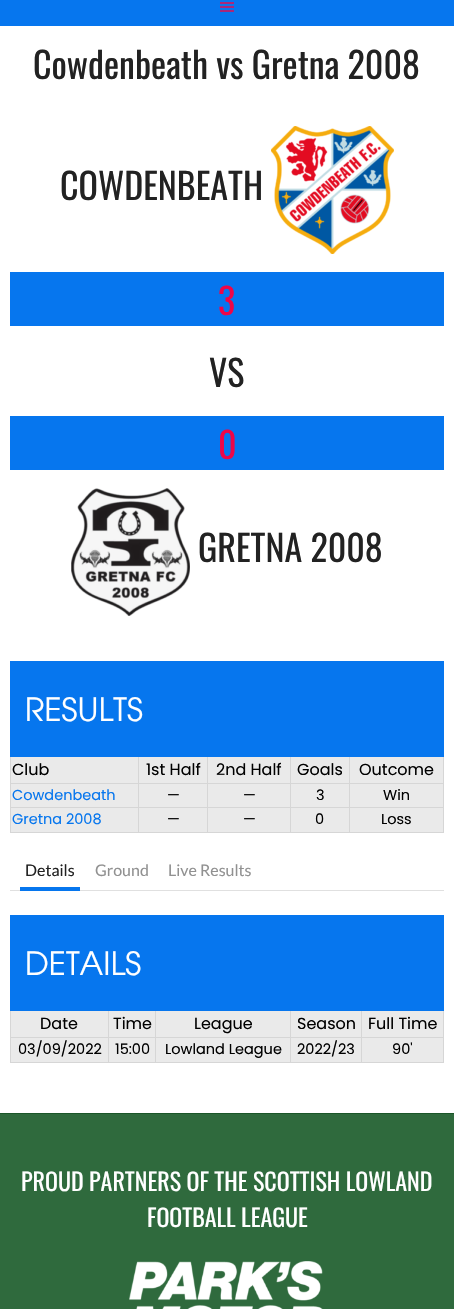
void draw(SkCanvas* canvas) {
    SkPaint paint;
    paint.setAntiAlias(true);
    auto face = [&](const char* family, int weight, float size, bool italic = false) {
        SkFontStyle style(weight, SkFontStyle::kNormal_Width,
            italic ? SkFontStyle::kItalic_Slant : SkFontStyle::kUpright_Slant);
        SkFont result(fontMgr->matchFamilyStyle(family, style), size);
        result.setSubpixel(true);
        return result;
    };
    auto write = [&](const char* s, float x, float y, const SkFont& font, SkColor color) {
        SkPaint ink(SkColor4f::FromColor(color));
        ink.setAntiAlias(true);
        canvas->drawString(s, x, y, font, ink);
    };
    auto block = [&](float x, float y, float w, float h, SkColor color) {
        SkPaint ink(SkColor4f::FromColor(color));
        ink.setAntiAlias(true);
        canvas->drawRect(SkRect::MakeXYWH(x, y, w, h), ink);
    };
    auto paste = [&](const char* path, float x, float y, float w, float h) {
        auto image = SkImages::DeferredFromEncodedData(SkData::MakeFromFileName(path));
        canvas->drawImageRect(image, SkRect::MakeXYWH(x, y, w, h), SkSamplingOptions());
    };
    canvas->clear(SK_ColorWHITE);
    block(0, 0, 454, 26, SkColorSetRGB(6, 118, 238));
    paste("pic1.png", 220, 2, 14, 10);
    auto kFont1 = face("Oswald", 400, 36);
    write("Cowdenbeath vs Gretna 2008", 33, 79, kFont1, SkColorSetRGB(34, 34, 34));
    write("COWDENBEATH", 60, 200, kFont1, SkColorSetRGB(34, 34, 34));
    paste("pic2.png", 271, 126, 123, 128);
    block(10, 272, 434, 54, SkColorSetRGB(6, 118, 238));
    write("3", 218, 315, kFont1, SkColorSetRGB(238, 6, 72));
    write("VS", 209, 387, kFont1, SkColorSetRGB(34, 34, 34));
    block(10, 416, 434, 54, SkColorSetRGB(6, 118, 238));
    write("0", 218, 459, kFont1, SkColorSetRGB(238, 6, 72));
    paste("pic3.png", 71, 488, 119, 128);
    write("GRETNA 2008", 198, 562, kFont1, SkColorSetRGB(34, 34, 34));
    block(443, 756, 1, 77, SkColorSetRGB(214, 214, 214));
    block(10, 832, 434, 1, SkColorSetRGB(214, 214, 214));
    block(10, 756, 1, 77, SkColorSetRGB(214, 214, 214));
    block(11, 757, 432, 75, SkColorSetRGB(234, 234, 234));
    block(349, 783, 95, 1, SkColorSetRGB(214, 214, 214));
    block(349, 807, 95, 1, SkColorSetRGB(214, 214, 214));
    block(349, 807, 1, 26, SkColorSetRGB(214, 214, 214));
    block(290, 807, 60, 1, SkColorSetRGB(214, 214, 214));
    block(349, 783, 1, 25, SkColorSetRGB(214, 214, 214));
    block(290, 783, 60, 1, SkColorSetRGB(214, 214, 214));
    block(290, 807, 1, 26, SkColorSetRGB(214, 214, 214));
    block(207, 807, 84, 1, SkColorSetRGB(214, 214, 214));
    block(290, 783, 1, 25, SkColorSetRGB(214, 214, 214));
    block(207, 783, 84, 1, SkColorSetRGB(214, 214, 214));
    block(207, 807, 1, 26, SkColorSetRGB(214, 214, 214));
    block(138, 807, 70, 1, SkColorSetRGB(214, 214, 214));
    block(207, 783, 1, 25, SkColorSetRGB(214, 214, 214));
    block(138, 783, 70, 1, SkColorSetRGB(214, 214, 214));
    block(138, 807, 1, 26, SkColorSetRGB(214, 214, 214));
    block(10, 807, 129, 1, SkColorSetRGB(214, 214, 214));
    block(138, 783, 1, 25, SkColorSetRGB(214, 214, 214));
    block(10, 783, 129, 1, SkColorSetRGB(214, 214, 214));
    block(138, 756, 1, 28, SkColorSetRGB(214, 214, 214));
    block(207, 756, 1, 28, SkColorSetRGB(214, 214, 214));
    block(290, 756, 1, 28, SkColorSetRGB(214, 214, 214));
    block(349, 756, 1, 28, SkColorSetRGB(214, 214, 214));
    block(10, 661, 434, 96, SkColorSetRGB(6, 118, 238));
    auto kFont2 = face("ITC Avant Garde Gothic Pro", 300, 32);
    write("RESULTS", 25, 721, kFont2, SK_ColorWHITE);
    auto kFont3 = face("Poppins", 400, 16);
    write("Club", 12, 775, kFont3, SK_ColorBLACK);
    write("1st Half", 146, 775, kFont3, SK_ColorBLACK);
    write("2nd Half", 216, 775, kFont3, SK_ColorBLACK);
    write("Goals", 297, 775, kFont3, SK_ColorBLACK);
    write("Outcome", 359, 775, kFont3, SK_ColorBLACK);
    auto kFont4 = face("Poppins", 400, 14.5f);
    write("Cowdenbeath", 12, 800, kFont4, SkColorSetRGB(6, 118, 238));
    write("—", 167, 800, kFont4, SK_ColorBLACK);
    write("—", 243, 800, kFont4, SK_ColorBLACK);
    write("3", 316, 800, kFont4, SK_ColorBLACK);
    write("Win", 383, 800, kFont4, SK_ColorBLACK);
    write("Gretna 2008", 12, 824, kFont4, SkColorSetRGB(6, 118, 238));
    write("—", 167, 824, kFont4, SK_ColorBLACK);
    write("—", 243, 824, kFont4, SK_ColorBLACK);
    write("0", 315, 824, kFont4, SK_ColorBLACK);
    write("Loss", 381, 824, kFont4, SK_ColorBLACK);
    block(10, 890, 434, 1, SkColorSetRGB(224, 224, 224));
    block(20, 887, 60, 4, SkColorSetRGB(6, 118, 238));
    auto kFont5 = face("Lato", 400, 16);
    write("Details", 25, 876, kFont5, SkColorSetRGB(34, 34, 34));
    write("Ground", 95, 876, kFont5, SkColorSetRGB(145, 145, 145));
    write("Live Results", 168, 876, kFont5, SkColorSetRGB(145, 145, 145));
    block(443, 1010, 1, 53, SkColorSetRGB(214, 214, 214));
    block(10, 1062, 434, 1, SkColorSetRGB(214, 214, 214));
    block(10, 1010, 1, 53, SkColorSetRGB(214, 214, 214));
    block(11, 1011, 432, 51, SkColorSetRGB(234, 234, 234));
    block(361, 1037, 83, 1, SkColorSetRGB(214, 214, 214));
    block(361, 1037, 1, 26, SkColorSetRGB(214, 214, 214));
    block(290, 1037, 72, 1, SkColorSetRGB(214, 214, 214));
    block(290, 1037, 1, 26, SkColorSetRGB(214, 214, 214));
    block(155, 1037, 136, 1, SkColorSetRGB(214, 214, 214));
    block(155, 1037, 1, 26, SkColorSetRGB(214, 214, 214));
    block(108, 1037, 48, 1, SkColorSetRGB(214, 214, 214));
    block(108, 1037, 1, 26, SkColorSetRGB(214, 214, 214));
    block(10, 1037, 99, 1, SkColorSetRGB(214, 214, 214));
    block(108, 1010, 1, 28, SkColorSetRGB(214, 214, 214));
    block(155, 1010, 1, 28, SkColorSetRGB(214, 214, 214));
    block(290, 1010, 1, 28, SkColorSetRGB(214, 214, 214));
    block(361, 1010, 1, 28, SkColorSetRGB(214, 214, 214));
    block(10, 915, 434, 96, SkColorSetRGB(6, 118, 238));
    write("DETAILS", 25, 975, kFont2, SK_ColorWHITE);
    write("Date", 40, 1029, kFont3, SK_ColorBLACK);
    write("Time", 113, 1029, kFont3, SK_ColorBLACK);
    write("League", 194, 1029, kFont3, SK_ColorBLACK);
    write("Season", 297, 1029, kFont3, SK_ColorBLACK);
    write("Full Time", 368, 1029, kFont3, SK_ColorBLACK);
    write("03/09/2022", 18, 1054, kFont4, SK_ColorBLACK);
    write("15:00", 115, 1054, kFont4, SK_ColorBLACK);
    write("Lowland League", 165, 1054, kFont4, SK_ColorBLACK);
    write("2022/23", 297, 1054, kFont4, SK_ColorBLACK);
    write("90'", 392, 1054, kFont4, SK_ColorBLACK);
    block(0, 1114, 454, 195, SkColorSetRGB(47, 106, 61));
    block(0, 1113, 454, 1, SkColorSetRGB(27, 86, 41));
    auto kFont6 = face("Oswald", 400, 24);
    write("PROUD PARTNERS OF THE SCOTTISH LOWLAND", 21, 1191, kFont6, SK_ColorWHITE);
    write("FOOTBALL LEAGUE", 147, 1227, kFont6, SK_ColorWHITE);
    paste("pic4.png", 129, 1261, 194, 48);
}
